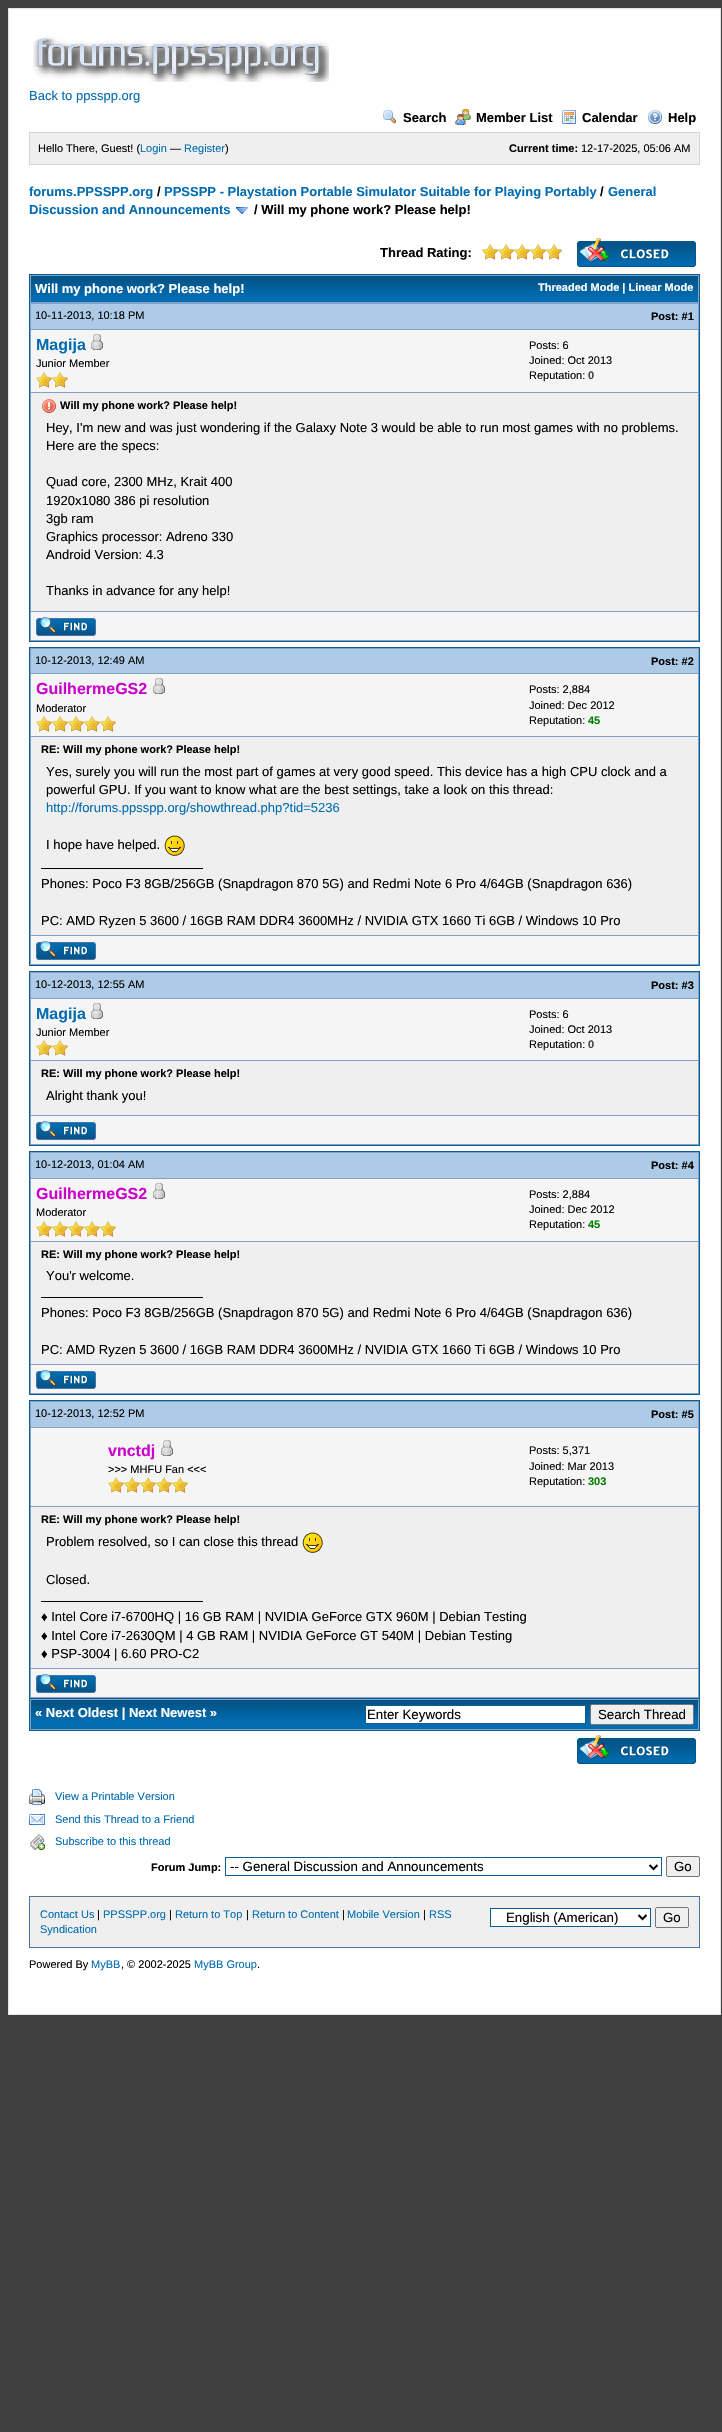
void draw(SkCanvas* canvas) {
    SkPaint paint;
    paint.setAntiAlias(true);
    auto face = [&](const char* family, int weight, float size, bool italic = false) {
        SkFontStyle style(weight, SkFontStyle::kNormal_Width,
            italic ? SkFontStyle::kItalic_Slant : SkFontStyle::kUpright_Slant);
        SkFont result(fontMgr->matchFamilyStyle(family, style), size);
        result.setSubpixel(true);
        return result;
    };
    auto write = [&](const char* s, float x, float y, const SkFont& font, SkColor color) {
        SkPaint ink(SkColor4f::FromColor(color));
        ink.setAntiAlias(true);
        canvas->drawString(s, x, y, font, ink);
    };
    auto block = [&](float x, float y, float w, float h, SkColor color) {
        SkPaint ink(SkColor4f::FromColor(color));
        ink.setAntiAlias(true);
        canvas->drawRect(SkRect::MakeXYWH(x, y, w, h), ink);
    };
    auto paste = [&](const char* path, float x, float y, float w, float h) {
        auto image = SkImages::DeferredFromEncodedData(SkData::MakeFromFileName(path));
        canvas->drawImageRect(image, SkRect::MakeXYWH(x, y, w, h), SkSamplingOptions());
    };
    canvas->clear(SkColorSetRGB(63, 63, 63));
    paint.setColor(SK_ColorWHITE);
    canvas->drawRect(SkRect::MakeXYWH(8.5f, 8.5f, 712, 2006), paint);
    paint.setStyle(SkPaint::kStroke_Style);
    paint.setStrokeWidth(1);
    paint.setColor(SkColorSetRGB(228, 228, 228));
    canvas->drawRect(SkRect::MakeXYWH(8.5f, 8.5f, 712, 2006), paint);
    paste("pic1.png", 33, 36, 296, 46);
    auto kFont1 = face("Liberation Sans", 400, 13);
    write("Back to ppsspp.org", 29, 100, kFont1, SkColorSetRGB(2, 108, 177));
    paste("pic2.png", 383, 110, 13, 14);
    auto kFont2 = face("Liberation Sans", 700, 13);
    write("Search", 403, 122, kFont2, SK_ColorBLACK);
    paste("pic3.png", 455, 109, 16, 16);
    write("Member List", 476, 122, kFont2, SK_ColorBLACK);
    paste("pic4.png", 562, 110, 14, 14);
    write("Calendar", 582, 122, kFont2, SK_ColorBLACK);
    paste("pic5.png", 648, 110, 14, 14);
    write("Help", 668, 122, kFont2, SK_ColorBLACK);
    paint.setStyle(SkPaint::kFill_Style);
    paint.setColor(SkColorSetRGB(239, 239, 239));
    canvas->drawRect(SkRect::MakeXYWH(29.5f, 132.5f, 670, 32), paint);
    paint.setStyle(SkPaint::kStroke_Style);
    paint.setColor(SkColorSetRGB(212, 212, 212));
    canvas->drawRect(SkRect::MakeXYWH(29.5f, 132.5f, 670, 32), paint);
    auto kFont3 = face("Liberation Sans", 400, 11);
    write("Hello There, Guest! (", 38, 152, kFont3, SK_ColorBLACK);
    write("Login", 140, 152, kFont3, SkColorSetRGB(2, 108, 177));
    write("—", 170, 152, kFont3, SK_ColorBLACK);
    write("Register", 184, 152, kFont3, SkColorSetRGB(2, 108, 177));
    write(")", 225, 152, kFont3, SK_ColorBLACK);
    auto kFont4 = face("Liberation Sans", 700, 11);
    write("Current time:", 509, 152, kFont4, SK_ColorBLACK);
    write("12-17-2025, 05:06 AM", 581, 152, kFont3, SK_ColorBLACK);
    write("forums.PPSSPP.org", 29, 196, kFont2, SkColorSetRGB(2, 108, 177));
    write("/", 157, 196, kFont2, SK_ColorBLACK);
    write("PPSSPP - Playstation Portable Simulator Suitable for Playing Portably", 164, 196, kFont2, SkColorSetRGB(2, 108, 177));
    write("/", 600, 196, kFont2, SK_ColorBLACK);
    write("General", 608, 196, kFont2, SkColorSetRGB(2, 108, 177));
    write("Discussion and Announcements", 29, 214, kFont2, SkColorSetRGB(2, 108, 177));
    paste("pic6.png", 236, 207, 12, 7);
    write("/ Will my phone work? Please help!", 254, 214, kFont2, SK_ColorBLACK);
    write("Thread Rating:", 380, 257, kFont2, SK_ColorBLACK);
    paste("pic7.png", 482, 244, 80, 16);
    paste("pic8.png", 577, 238, 119, 29);
    block(30, 275, 669, 366, SkColorSetRGB(129, 162, 196));
    block(29, 274, 671, 1, SkColorSetRGB(15, 92, 142));
    block(699, 274, 1, 368, SkColorSetRGB(15, 92, 142));
    block(29, 274, 1, 29, SkColorSetRGB(15, 92, 142));
    block(31, 296, 667, 6, SkColorSetRGB(2, 108, 177));
    paste("pic9.png", 31, 276, 667, 20);
    write("Will my phone work? Please help!", 35, 293, kFont2, SK_ColorWHITE);
    write("Threaded Mode | Linear Mode", 538, 291, kFont4, SK_ColorWHITE);
    block(29, 641, 671, 1, SkColorSetRGB(15, 92, 142));
    block(29, 303, 1, 339, SkColorSetRGB(15, 92, 142));
    block(31, 304, 667, 25, SkColorSetRGB(173, 203, 231));
    write("10-11-2013, 10:18 PM", 35, 319, kFont3, SK_ColorBLACK);
    write("Post: #1", 651, 320, kFont4, SK_ColorBLACK);
    block(31, 330, 667, 62, SkColorSetRGB(245, 245, 245));
    auto kFont5 = face("Liberation Sans", 700, 16);
    write("Magija", 36, 350, kFont5, SkColorSetRGB(2, 108, 177));
    paste("pic10.png", 91, 334, 12, 16);
    write("Junior Member", 36, 367, kFont3, SK_ColorBLACK);
    paste("pic11.png", 36, 372, 16, 16);
    paste("pic11.png", 52, 372, 16, 16);
    write("Posts: 6", 529, 349, kFont3, SK_ColorBLACK);
    write("Joined: Oct 2013", 529, 364, kFont3, SK_ColorBLACK);
    write("Reputation:", 529, 379, kFont3, SK_ColorBLACK);
    write("0", 588, 379, kFont4, SkColorSetRGB(68, 68, 68));
    block(31, 393, 667, 218, SkColorSetRGB(239, 239, 239));
    paste("pic12.png", 42, 399, 14, 14);
    write("Will my phone work? Please help!", 60, 409, kFont4, SK_ColorBLACK);
    write("Hey, I'm new and was just wondering if the Galaxy Note 3 would be able to run most games with no problems.", 46, 432, kFont1, SK_ColorBLACK);
    write("Here are the specs:", 46, 450, kFont1, SK_ColorBLACK);
    write("Quad core, 2300 MHz, Krait 400", 46, 486, kFont1, SK_ColorBLACK);
    write("1920x1080 386 pi resolution", 46, 505, kFont1, SK_ColorBLACK);
    write("3gb ram", 46, 523, kFont1, SK_ColorBLACK);
    write("Graphics processor: Adreno 330", 46, 541, kFont1, SK_ColorBLACK);
    write("Android Version: 4.3", 46, 559, kFont1, SK_ColorBLACK);
    write("Thanks in advance for any help!", 46, 595, kFont1, SK_ColorBLACK);
    block(31, 612, 667, 28, SkColorSetRGB(245, 245, 245));
    paste("pic13.png", 36, 617, 60, 19);
    paint.setStyle(SkPaint::kFill_Style);
    paint.setColor(SkColorSetRGB(129, 162, 196));
    canvas->drawRect(SkRect::MakeXYWH(29.5f, 647.5f, 670, 318), paint);
    paint.setStyle(SkPaint::kStroke_Style);
    paint.setColor(SkColorSetRGB(15, 92, 142));
    canvas->drawRect(SkRect::MakeXYWH(29.5f, 647.5f, 670, 318), paint);
    block(31, 649, 667, 24, SkColorSetRGB(173, 203, 231));
    write("10-12-2013, 12:49 AM", 35, 664, kFont3, SK_ColorBLACK);
    write("Post: #2", 651, 665, kFont4, SK_ColorBLACK);
    block(31, 674, 667, 62, SkColorSetRGB(245, 245, 245));
    write("GuilhermeGS2", 36, 694, kFont5, SkColorSetRGB(204, 0, 204));
    paste("pic10.png", 153, 678, 12, 16);
    write("Moderator", 36, 712, kFont3, SK_ColorBLACK);
    paste("pic11.png", 36, 716, 16, 16);
    paste("pic11.png", 52, 716, 16, 16);
    paste("pic11.png", 68, 716, 16, 16);
    paste("pic11.png", 84, 716, 16, 16);
    paste("pic11.png", 100, 716, 16, 16);
    write("Posts: 2,884", 529, 693, kFont3, SK_ColorBLACK);
    write("Joined: Dec 2012", 529, 709, kFont3, SK_ColorBLACK);
    write("Reputation:", 529, 724, kFont3, SK_ColorBLACK);
    write("45", 588, 724, kFont4, SkColorSetRGB(0, 128, 0));
    block(31, 737, 667, 198, SkColorSetRGB(239, 239, 239));
    write("RE: Will my phone work? Please help!", 41, 753, kFont4, SK_ColorBLACK);
    write("Yes, surely you will run the most part of games at very good speed. This device has a high CPU clock and a", 46, 776, kFont1, SK_ColorBLACK);
    write("powerful GPU. If you want to know what are the best settings, take a look on this thread:", 46, 794, kFont1, SK_ColorBLACK);
    write("http://forums.ppsspp.org/showthread.php?tid=5236", 46, 812, kFont1, SkColorSetRGB(2, 108, 177));
    write("I hope have helped.", 46, 849, kFont1, SK_ColorBLACK);
    paste("pic14.png", 164, 835, 21, 21);
    block(41, 868, 162, 1, SK_ColorBLACK);
    write("Phones: Poco F3 8GB/256GB (Snapdragon 870 5G) and Redmi Note 6 Pro 4/64GB (Snapdragon 636)", 41, 888, kFont1, SK_ColorBLACK);
    write("PC: AMD Ryzen 5 3600 / 16GB RAM DDR4 3600MHz / NVIDIA GTX 1660 Ti 6GB / Windows 10 Pro", 41, 925, kFont1, SK_ColorBLACK);
    block(31, 936, 667, 28, SkColorSetRGB(245, 245, 245));
    paste("pic13.png", 36, 941, 60, 19);
    paint.setStyle(SkPaint::kFill_Style);
    paint.setColor(SkColorSetRGB(129, 162, 196));
    canvas->drawRect(SkRect::MakeXYWH(29.5f, 971.5f, 670, 174), paint);
    paint.setStyle(SkPaint::kStroke_Style);
    paint.setColor(SkColorSetRGB(15, 92, 142));
    canvas->drawRect(SkRect::MakeXYWH(29.5f, 971.5f, 670, 174), paint);
    block(31, 973, 667, 25, SkColorSetRGB(173, 203, 231));
    write("10-12-2013, 12:55 AM", 35, 988, kFont3, SK_ColorBLACK);
    write("Post: #3", 651, 989, kFont4, SK_ColorBLACK);
    block(31, 999, 667, 61, SkColorSetRGB(245, 245, 245));
    write("Magija", 36, 1019, kFont5, SkColorSetRGB(2, 108, 177));
    paste("pic10.png", 91, 1003, 12, 16);
    write("Junior Member", 36, 1036, kFont3, SK_ColorBLACK);
    paste("pic11.png", 36, 1040, 16, 16);
    paste("pic11.png", 52, 1040, 16, 16);
    write("Posts: 6", 529, 1018, kFont3, SK_ColorBLACK);
    write("Joined: Oct 2013", 529, 1033, kFont3, SK_ColorBLACK);
    write("Reputation:", 529, 1048, kFont3, SK_ColorBLACK);
    write("0", 588, 1048, kFont4, SkColorSetRGB(68, 68, 68));
    block(31, 1061, 667, 54, SkColorSetRGB(239, 239, 239));
    write("RE: Will my phone work? Please help!", 41, 1077, kFont4, SK_ColorBLACK);
    write("Alright thank you!", 46, 1100, kFont1, SK_ColorBLACK);
    block(31, 1116, 667, 28, SkColorSetRGB(245, 245, 245));
    paste("pic13.png", 36, 1121, 60, 19);
    paint.setStyle(SkPaint::kFill_Style);
    paint.setColor(SkColorSetRGB(129, 162, 196));
    canvas->drawRect(SkRect::MakeXYWH(29.5f, 1151.5f, 670, 243), paint);
    paint.setStyle(SkPaint::kStroke_Style);
    paint.setColor(SkColorSetRGB(15, 92, 142));
    canvas->drawRect(SkRect::MakeXYWH(29.5f, 1151.5f, 670, 243), paint);
    block(31, 1153, 667, 25, SkColorSetRGB(173, 203, 231));
    write("10-12-2013, 01:04 AM", 35, 1168, kFont3, SK_ColorBLACK);
    write("Post: #4", 651, 1169, kFont4, SK_ColorBLACK);
    block(31, 1179, 667, 62, SkColorSetRGB(245, 245, 245));
    write("GuilhermeGS2", 36, 1199, kFont5, SkColorSetRGB(204, 0, 204));
    paste("pic10.png", 153, 1183, 12, 16);
    write("Moderator", 36, 1216, kFont3, SK_ColorBLACK);
    paste("pic11.png", 36, 1221, 16, 16);
    paste("pic11.png", 52, 1221, 16, 16);
    paste("pic11.png", 68, 1221, 16, 16);
    paste("pic11.png", 84, 1221, 16, 16);
    paste("pic11.png", 100, 1221, 16, 16);
    write("Posts: 2,884", 529, 1198, kFont3, SK_ColorBLACK);
    write("Joined: Dec 2012", 529, 1213, kFont3, SK_ColorBLACK);
    write("Reputation:", 529, 1228, kFont3, SK_ColorBLACK);
    write("45", 588, 1228, kFont4, SkColorSetRGB(0, 128, 0));
    block(31, 1242, 667, 122, SkColorSetRGB(239, 239, 239));
    write("RE: Will my phone work? Please help!", 41, 1258, kFont4, SK_ColorBLACK);
    write("You'r welcome.", 46, 1280, kFont1, SK_ColorBLACK);
    block(41, 1297, 162, 1, SK_ColorBLACK);
    write("Phones: Poco F3 8GB/256GB (Snapdragon 870 5G) and Redmi Note 6 Pro 4/64GB (Snapdragon 636)", 41, 1317, kFont1, SK_ColorBLACK);
    write("PC: AMD Ryzen 5 3600 / 16GB RAM DDR4 3600MHz / NVIDIA GTX 1660 Ti 6GB / Windows 10 Pro", 41, 1354, kFont1, SK_ColorBLACK);
    block(31, 1365, 667, 28, SkColorSetRGB(245, 245, 245));
    paste("pic13.png", 36, 1370, 60, 19);
    paint.setStyle(SkPaint::kFill_Style);
    paint.setColor(SkColorSetRGB(129, 162, 196));
    canvas->drawRect(SkRect::MakeXYWH(29.5f, 1400.5f, 670, 298), paint);
    paint.setStyle(SkPaint::kStroke_Style);
    paint.setColor(SkColorSetRGB(15, 92, 142));
    canvas->drawRect(SkRect::MakeXYWH(29.5f, 1400.5f, 670, 298), paint);
    block(31, 1402, 667, 25, SkColorSetRGB(173, 203, 231));
    write("10-12-2013, 12:52 PM", 35, 1417, kFont3, SK_ColorBLACK);
    write("Post: #5", 651, 1418, kFont4, SK_ColorBLACK);
    block(31, 1428, 667, 78, SkColorSetRGB(245, 245, 245));
    write("vnctdj", 108, 1456, kFont5, SkColorSetRGB(204, 0, 204));
    paste("pic10.png", 161, 1440, 12, 16);
    write(">>> MHFU Fan <<<", 108, 1473, kFont3, SK_ColorBLACK);
    paste("pic11.png", 108, 1477, 16, 16);
    paste("pic11.png", 124, 1477, 16, 16);
    paste("pic11.png", 140, 1477, 16, 16);
    paste("pic11.png", 156, 1477, 16, 16);
    paste("pic11.png", 172, 1477, 16, 16);
    write("Posts: 5,371", 529, 1454, kFont3, SK_ColorBLACK);
    write("Joined: Mar 2013", 529, 1470, kFont3, SK_ColorBLACK);
    write("Reputation:", 529, 1485, kFont3, SK_ColorBLACK);
    write("303", 588, 1485, kFont4, SkColorSetRGB(0, 128, 0));
    block(31, 1507, 667, 161, SkColorSetRGB(239, 239, 239));
    write("RE: Will my phone work? Please help!", 41, 1523, kFont4, SK_ColorBLACK);
    write("Problem resolved, so I can close this thread", 46, 1546, kFont1, SK_ColorBLACK);
    paste("pic14.png", 302, 1532, 21, 21);
    write("Closed.", 46, 1584, kFont1, SK_ColorBLACK);
    block(41, 1601, 162, 1, SK_ColorBLACK);
    write("♦ Intel Core i7-6700HQ | 16 GB RAM | NVIDIA GeForce GTX 960M | Debian Testing", 41, 1621, kFont1, SK_ColorBLACK);
    write("♦ Intel Core i7-2630QM | 4 GB RAM | NVIDIA GeForce GT 540M | Debian Testing", 41, 1640, kFont1, SK_ColorBLACK);
    write("♦ PSP-3004 | 6.60 PRO-C2", 41, 1658, kFont1, SK_ColorBLACK);
    block(31, 1669, 667, 28, SkColorSetRGB(245, 245, 245));
    paste("pic13.png", 36, 1674, 60, 19);
    block(30, 1699, 669, 31, SkColorSetRGB(129, 162, 196));
    block(699, 1699, 1, 32, SkColorSetRGB(15, 92, 142));
    block(29, 1730, 671, 1, SkColorSetRGB(15, 92, 142));
    block(29, 1699, 1, 32, SkColorSetRGB(15, 92, 142));
    block(31, 1720, 667, 9, SkColorSetRGB(2, 108, 177));
    paste("pic9.png", 31, 1700, 667, 20);
    write("« Next Oldest | Next Newest »", 35, 1717, kFont2, SK_ColorWHITE);
    paint.setStyle(SkPaint::kFill_Style);
    paint.setColor(SK_ColorWHITE);
    canvas->drawRect(SkRect::MakeXYWH(365.5f, 1705.5f, 220, 18), paint);
    paint.setStyle(SkPaint::kStroke_Style);
    paint.setColor(SkColorSetRGB(15, 92, 142));
    canvas->drawRect(SkRect::MakeXYWH(365.5f, 1705.5f, 220, 18), paint);
    auto kFont6 = face("Liberation Sans", 400, 13.3f);
    write("Enter Keywords", 367, 1719, kFont6, SK_ColorBLACK);
    paint.setStyle(SkPaint::kFill_Style);
    paint.setColor(SkColorSetRGB(239, 239, 239));
    canvas->drawRoundRect(SkRect::MakeXYWH(590.5f, 1704.5f, 103, 20), 1.5f, 1.5f, paint);
    paint.setStyle(SkPaint::kStroke_Style);
    paint.setColor(SkColorSetRGB(118, 118, 118));
    canvas->drawRoundRect(SkRect::MakeXYWH(590.5f, 1704.5f, 103, 20), 1.5f, 1.5f, paint);
    write("Search Thread", 598, 1719, kFont6, SK_ColorBLACK);
    paste("pic8.png", 577, 1735, 119, 29);
    paste("pic15.png", 29, 1789, 16, 16);
    write("View a Printable Version", 55, 1800, kFont3, SkColorSetRGB(2, 108, 177));
    paste("pic16.png", 29, 1814, 16, 11);
    write("Send this Thread to a Friend", 55, 1823, kFont3, SkColorSetRGB(2, 108, 177));
    paste("pic17.png", 30, 1834, 15, 16);
    write("Subscribe to this thread", 55, 1845, kFont3, SkColorSetRGB(2, 108, 177));
    write("Forum Jump:", 151, 1871, kFont4, SK_ColorBLACK);
    paint.setColor(SkColorSetRGB(15, 92, 142));
    canvas->drawRect(SkRect::MakeXYWH(225.5f, 1857.5f, 436, 18), paint);
    paint.setStrokeWidth(2);
    paint.setColor(SK_ColorBLACK);
    canvas->drawPath(SkPathBuilder().moveTo(649.5f, 1865).lineTo(653.5f, 1869).lineTo(657.5f, 1865).detach(), paint);
    write("-- General Discussion and Announcements", 230, 1871, kFont6, SK_ColorBLACK);
    paint.setStyle(SkPaint::kFill_Style);
    paint.setColor(SkColorSetRGB(239, 239, 239));
    canvas->drawRoundRect(SkRect::MakeXYWH(666.5f, 1856.5f, 33, 20), 1.5f, 1.5f, paint);
    paint.setStyle(SkPaint::kStroke_Style);
    paint.setStrokeWidth(1);
    paint.setColor(SkColorSetRGB(118, 118, 118));
    canvas->drawRoundRect(SkRect::MakeXYWH(666.5f, 1856.5f, 33, 20), 1.5f, 1.5f, paint);
    write("Go", 674, 1871, kFont6, SK_ColorBLACK);
    paint.setStyle(SkPaint::kFill_Style);
    paint.setColor(SkColorSetRGB(239, 239, 239));
    canvas->drawRect(SkRect::MakeXYWH(29.5f, 1896.5f, 670, 51), paint);
    paint.setStyle(SkPaint::kStroke_Style);
    paint.setColor(SkColorSetRGB(72, 116, 163));
    canvas->drawRect(SkRect::MakeXYWH(29.5f, 1896.5f, 670, 51), paint);
    write("Contact Us", 40, 1918, kFont3, SkColorSetRGB(2, 108, 177));
    write("|", 97, 1918, kFont3, SK_ColorBLACK);
    write("PPSSPP.org", 103, 1918, kFont3, SkColorSetRGB(2, 108, 177));
    write("|", 169, 1918, kFont3, SK_ColorBLACK);
    write("Return to Top", 175, 1918, kFont3, SkColorSetRGB(2, 108, 177));
    write("|", 246, 1918, kFont3, SK_ColorBLACK);
    write("Return to Content", 252, 1918, kFont3, SkColorSetRGB(2, 108, 177));
    write("|", 342, 1918, kFont3, SK_ColorBLACK);
    write("Mobile Version", 347, 1918, kFont3, SkColorSetRGB(2, 108, 177));
    write("|", 423, 1918, kFont3, SK_ColorBLACK);
    write("RSS", 429, 1918, kFont3, SkColorSetRGB(2, 108, 177));
    write("Syndication", 40, 1933, kFont3, SkColorSetRGB(2, 108, 177));
    paint.setStyle(SkPaint::kFill_Style);
    paint.setColor(SK_ColorWHITE);
    canvas->drawRect(SkRect::MakeXYWH(490.5f, 1908.5f, 160, 18), paint);
    paint.setStyle(SkPaint::kStroke_Style);
    paint.setColor(SkColorSetRGB(15, 92, 142));
    canvas->drawRect(SkRect::MakeXYWH(490.5f, 1908.5f, 160, 18), paint);
    paint.setStrokeWidth(2);
    paint.setColor(SK_ColorBLACK);
    canvas->drawPath(SkPathBuilder().moveTo(638.5f, 1915).lineTo(642.5f, 1919).lineTo(646.5f, 1915).detach(), paint);
    write("English (American)", 506, 1922, kFont6, SK_ColorBLACK);
    paint.setStrokeWidth(1);
    paint.setColor(SkColorSetRGB(118, 118, 118));
    canvas->drawRoundRect(SkRect::MakeXYWH(655.5f, 1907.5f, 33, 20), 1.5f, 1.5f, paint);
    write("Go", 663, 1922, kFont6, SK_ColorBLACK);
    write("Powered By", 29, 1968, kFont3, SK_ColorBLACK);
    write("MyBB", 91, 1968, kFont3, SkColorSetRGB(2, 108, 177));
    write(", © 2002-2025", 121, 1968, kFont3, SK_ColorBLACK);
    write("MyBB Group", 194, 1968, kFont3, SkColorSetRGB(2, 108, 177));
    write(".", 257, 1968, kFont3, SK_ColorBLACK);
}
